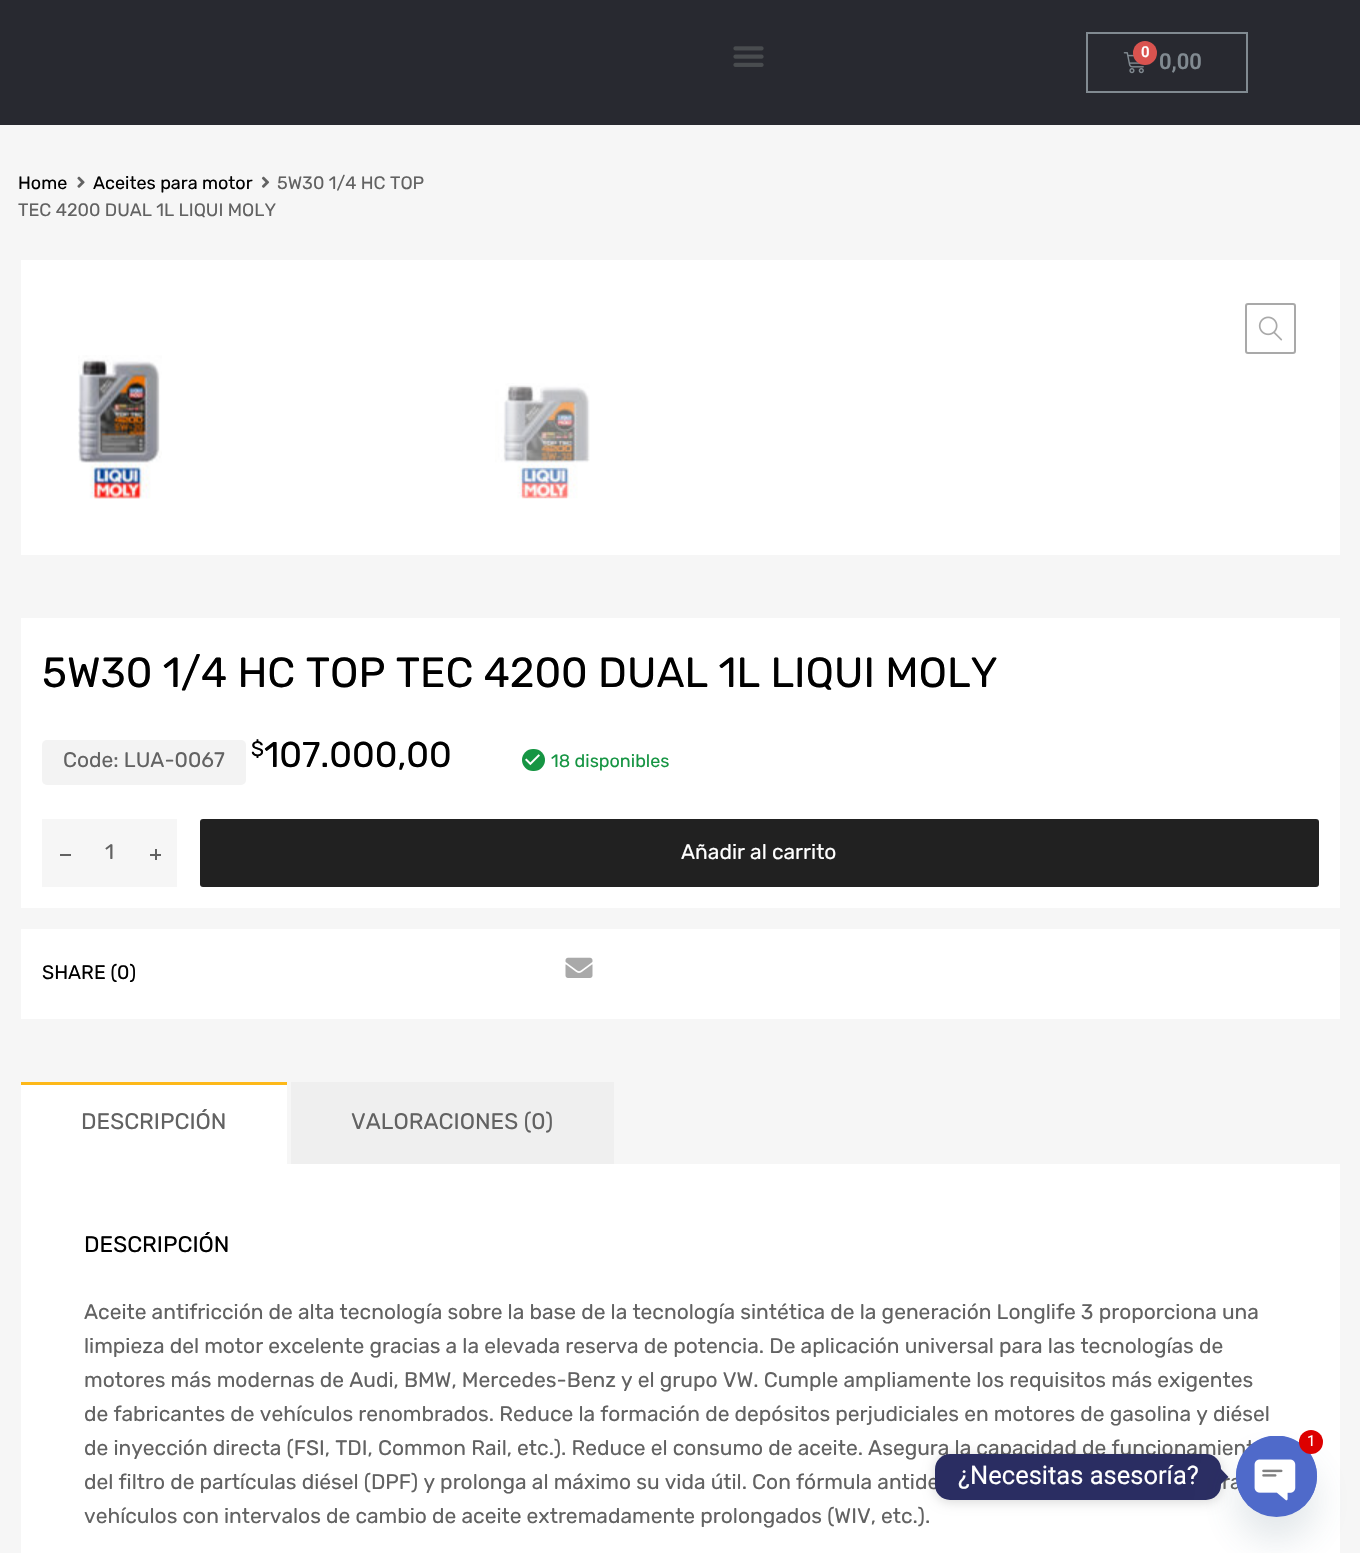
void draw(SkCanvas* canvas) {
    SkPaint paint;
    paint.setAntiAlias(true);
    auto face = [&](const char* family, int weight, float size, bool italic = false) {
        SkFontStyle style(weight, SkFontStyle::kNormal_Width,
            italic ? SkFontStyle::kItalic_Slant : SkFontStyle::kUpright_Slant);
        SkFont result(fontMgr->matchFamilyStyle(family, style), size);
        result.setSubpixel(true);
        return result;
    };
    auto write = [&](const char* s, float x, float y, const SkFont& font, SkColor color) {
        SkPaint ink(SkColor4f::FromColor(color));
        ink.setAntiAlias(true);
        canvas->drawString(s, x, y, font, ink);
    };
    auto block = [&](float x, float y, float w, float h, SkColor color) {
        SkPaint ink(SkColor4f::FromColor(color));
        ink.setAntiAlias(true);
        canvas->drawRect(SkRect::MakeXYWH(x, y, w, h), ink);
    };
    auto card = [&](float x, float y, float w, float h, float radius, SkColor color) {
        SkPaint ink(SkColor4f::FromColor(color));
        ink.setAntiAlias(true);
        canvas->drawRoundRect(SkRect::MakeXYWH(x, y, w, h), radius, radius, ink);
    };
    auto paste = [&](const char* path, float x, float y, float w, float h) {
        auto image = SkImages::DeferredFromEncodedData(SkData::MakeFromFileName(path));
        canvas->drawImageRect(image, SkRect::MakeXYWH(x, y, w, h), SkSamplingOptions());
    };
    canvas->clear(SkColorSetRGB(246, 246, 246));
    block(0, 0, 1360, 125, SkColorSetRGB(40, 41, 48));
    paste("pic1.png", 733, 46, 31, 21);
    paint.setStyle(SkPaint::kStroke_Style);
    paint.setStrokeWidth(2);
    paint.setColor(SkColorSetRGB(129, 138, 145));
    canvas->drawRect(SkRect::MakeXYWH(1087, 33, 160, 59), paint);
    paste("pic2.png", 1123, 52, 21, 22);
    paint.setStyle(SkPaint::kFill_Style);
    paint.setColor(SkColorSetRGB(217, 83, 79));
    canvas->drawCircle(1145, 53, 12, paint);
    auto kFont1 = face("Roboto", 600, 15);
    write("0", 1141, 57, kFont1, SK_ColorWHITE);
    auto kFont2 = face("Roboto", 600, 22);
    write("0,00", 1159, 69, kFont2, SkColorSetRGB(129, 138, 145));
    auto kFont3 = face("Rubik", 300, 18);
    write("Home", 18, 189, kFont3, SK_ColorBLACK);
    paste("pic3.png", 77, 176, 8, 12);
    write("Aceites para motor", 93, 189, kFont3, SK_ColorBLACK);
    paste("pic4.png", 261, 176, 9, 12);
    write("5W30 1/4 HC TOP", 277, 189, kFont3, SkColorSetRGB(98, 98, 98));
    write("TEC 4200 DUAL 1L LIQUI MOLY", 18, 216, kFont3, SkColorSetRGB(98, 98, 98));
    block(21, 260, 1319, 295, SK_ColorWHITE);
    paint.setStyle(SkPaint::kStroke_Style);
    paint.setColor(SkColorSetRGB(169, 169, 169));
    canvas->drawRoundRect(SkRect::MakeXYWH(1246, 304, 49, 49), 2, 2, paint);
    paste("pic5.png", 1258, 316, 25, 25);
    paste("pic6.png", 78, 355, 84, 144);
    paste("pic7.png", 495, 383, 95, 116);
    block(21, 618, 1319, 290, SK_ColorWHITE);
    auto kFont4 = face("Rubik", 300, 42);
    write("5W30 1/4 HC TOP TEC 4200 DUAL 1L LIQUI MOLY", 42, 687, kFont4, SK_ColorBLACK);
    card(42, 740, 204, 45, 5, SkColorSetRGB(243, 243, 243));
    auto kFont5 = face("Rubik", 300, 21);
    write("Code: LUA-0067", 63, 767, kFont5, SkColorSetRGB(98, 98, 98));
    write("$", 251, 756, kFont5, SK_ColorBLACK);
    auto kFont6 = face("Rubik", 300, 35.75f);
    write("107.000,00", 264, 767, kFont6, SK_ColorBLACK);
    card(522, 749, 23, 22, 11, SkColorSetRGB(22, 149, 67));
    paste("pic8.png", 525, 754, 15, 12);
    write("18 disponibles", 551, 767, kFont3, SkColorSetRGB(22, 149, 67));
    block(42, 819, 135, 68, SkColorSetRGB(246, 246, 246));
    block(60, 854, 11, 2, SkColorSetRGB(98, 98, 98));
    write("1", 105, 859, kFont5, SkColorSetRGB(98, 98, 98));
    block(155, 849, 2, 11, SkColorSetRGB(98, 98, 98));
    block(150, 854, 11, 2, SkColorSetRGB(98, 98, 98));
    card(200, 819, 1119, 68, 3, SkColorSetRGB(33, 33, 33));
    write("Añadir al carrito", 681, 859, kFont5, SK_ColorWHITE);
    block(21, 929, 1319, 90, SK_ColorWHITE);
    auto kFont7 = face("Rubik", 300, 19.5f);
    write("SHARE (0)", 42, 979, kFont7, SK_ColorBLACK);
    paste("pic9.png", 565, 957, 28, 21);
    block(21, 1085, 266, 79, SK_ColorWHITE);
    block(21, 1082, 266, 3, SkColorSetRGB(253, 184, 25));
    auto kFont8 = face("Rubik", 300, 22.5f);
    write("DESCRIPCIÓN", 81, 1129, kFont8, SkColorSetRGB(98, 98, 98));
    block(291, 1082, 323, 82, SkColorSetRGB(239, 239, 239));
    write("VALORACIONES (0)", 351, 1129, kFont8, SkColorSetRGB(98, 98, 98));
    block(21, 1164, 1319, 389, SK_ColorWHITE);
    write("DESCRIPCIÓN", 84, 1252, kFont8, SK_ColorBLACK);
    write("Aceite antifricción de alta tecnología sobre la base de la tecnología sintética de la generación Longlife 3 proporciona una", 84, 1319, kFont5, SkColorSetRGB(98, 98, 98));
    write("limpieza del motor excelente gracias a la elevada reserva de potencia. De aplicación universal para las tecnologías de", 84, 1353, kFont5, SkColorSetRGB(98, 98, 98));
    write("motores más modernas de Audi, BMW, Mercedes-Benz y el grupo VW. Cumple ampliamente los requisitos más exigentes", 84, 1387, kFont5, SkColorSetRGB(98, 98, 98));
    write("de fabricantes de vehículos renombrados. Reduce la formación de depósitos perjudiciales en motores de gasolina y diésel", 84, 1421, kFont5, SkColorSetRGB(98, 98, 98));
    write("de inyección directa (FSI, TDI, Common Rail, etc.). Reduce el consumo de aceite. Asegura la capacidad de funcionamient", 84, 1455, kFont5, SkColorSetRGB(98, 98, 98));
    write("del filtro de partículas diésel (DPF) y prolonga al máximo su vida útil. Con fórmula antide", 84, 1489, kFont5, SkColorSetRGB(98, 98, 98));
    write("ra", 1222, 1489, kFont5, SkColorSetRGB(98, 98, 98));
    write("vehículos con intervalos de cambio de aceite extremadamente prolongados (WIV, etc.).", 84, 1523, kFont5, SkColorSetRGB(98, 98, 98));
    paint.setStyle(SkPaint::kFill_Style);
    paint.setColor(SkColorSetARGB(38, 0, 0, 0));
    paint.setMaskFilter(SkMaskFilter::MakeBlur(kNormal_SkBlurStyle, 6));
    canvas->drawRoundRect(SkRect::MakeXYWH(935, 1455, 286, 47), 15, 15, paint);
    paint.setMaskFilter(nullptr);
    card(935, 1454, 286, 46, 15, SkColorSetRGB(42, 45, 98));
    paint.setColor(SkColorSetRGB(42, 45, 98));
    canvas->drawPath(SkPathBuilder().moveTo(1221, 1484).lineTo(1221, 1469).lineTo(1228.5f, 1477).close().detach(), paint);
    paint.setColor(SkColorSetARGB(41, 73, 104, 126));
    paint.setMaskFilter(SkMaskFilter::MakeBlur(kNormal_SkBlurStyle, 18));
    canvas->drawRoundRect(SkRect::MakeXYWH(1236, 1460, 81, 81), 40.5f, 40.5f, paint);
    paint.setMaskFilter(nullptr);
    paint.setColor(SkColorSetRGB(79, 106, 202));
    canvas->drawCircle(1276.5f, 1476.5f, 40.5f, paint);
    paste("pic10.png", 1236, 1436, 81, 76);
    paint.setColor(SkColorSetRGB(221, 0, 0));
    canvas->drawCircle(1311, 1442, 12, paint);
    auto kFont9 = face("Roboto", 400, 15);
    write("1", 1307, 1446, kFont9, SK_ColorWHITE);
    auto kFont10 = face("Roboto", 400, 25.5f);
    write("¿Necesitas asesoría?", 958, 1484, kFont10, SK_ColorWHITE);
}
